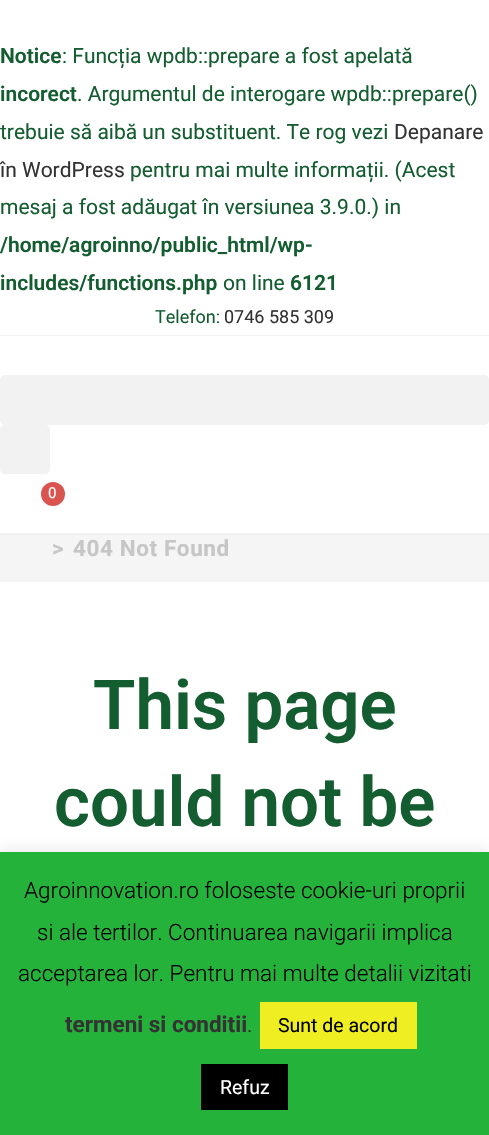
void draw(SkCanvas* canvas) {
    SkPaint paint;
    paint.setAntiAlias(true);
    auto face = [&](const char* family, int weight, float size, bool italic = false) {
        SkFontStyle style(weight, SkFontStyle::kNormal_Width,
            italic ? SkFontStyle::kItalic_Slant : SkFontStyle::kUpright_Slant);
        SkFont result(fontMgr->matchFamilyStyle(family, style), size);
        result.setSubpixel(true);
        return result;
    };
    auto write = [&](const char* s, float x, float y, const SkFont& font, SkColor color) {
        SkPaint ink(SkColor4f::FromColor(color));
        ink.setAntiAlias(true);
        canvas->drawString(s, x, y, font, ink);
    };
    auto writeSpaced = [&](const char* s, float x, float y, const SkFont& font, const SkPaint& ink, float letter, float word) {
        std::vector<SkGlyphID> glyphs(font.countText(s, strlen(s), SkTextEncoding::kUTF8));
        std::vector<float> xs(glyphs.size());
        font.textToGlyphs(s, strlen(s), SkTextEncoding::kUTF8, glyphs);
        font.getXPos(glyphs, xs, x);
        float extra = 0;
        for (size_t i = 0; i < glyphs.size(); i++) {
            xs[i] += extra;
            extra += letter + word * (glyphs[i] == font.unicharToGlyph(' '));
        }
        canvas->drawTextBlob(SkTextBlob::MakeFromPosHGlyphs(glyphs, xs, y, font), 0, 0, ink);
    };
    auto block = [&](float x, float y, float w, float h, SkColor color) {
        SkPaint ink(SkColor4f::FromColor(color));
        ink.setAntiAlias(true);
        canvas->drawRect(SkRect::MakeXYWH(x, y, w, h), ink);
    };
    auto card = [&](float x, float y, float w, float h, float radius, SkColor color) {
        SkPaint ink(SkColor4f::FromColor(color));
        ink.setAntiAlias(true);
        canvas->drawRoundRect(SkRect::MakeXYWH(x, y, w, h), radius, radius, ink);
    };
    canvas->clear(SK_ColorWHITE);
    auto kFont1 = face("Roboto", 600, 21);
    write("Notice", 0, 63, kFont1, SkColorSetRGB(20, 93, 49));
    auto kFont2 = face("Roboto", 400, 21);
    write(": Funcția wpdb::prepare a fost apelată", 62, 63, kFont2, SkColorSetRGB(20, 93, 49));
    write("incorect", 0, 101, kFont1, SkColorSetRGB(20, 93, 49));
    write(". Argumentul de interogare wpdb::prepare()", 77, 101, kFont2, SkColorSetRGB(20, 93, 49));
    write("trebuie să aibă un substituent. Te rog vezi", 0, 139, kFont2, SkColorSetRGB(20, 93, 49));
    write("Depanare", 394, 139, kFont2, SkColorSetRGB(51, 51, 51));
    write("în WordPress", 0, 177, kFont2, SkColorSetRGB(51, 51, 51));
    write("pentru mai multe informații. (Acest", 130, 177, kFont2, SkColorSetRGB(20, 93, 49));
    write("mesaj a fost adăugat în versiunea 3.9.0.) in", 0, 214, kFont2, SkColorSetRGB(20, 93, 49));
    write("/home/agroinno/public_html/wp-", 0, 252, kFont1, SkColorSetRGB(20, 93, 49));
    write("includes/functions.php", 0, 290, kFont1, SkColorSetRGB(20, 93, 49));
    write("on line", 223, 290, kFont2, SkColorSetRGB(20, 93, 49));
    write("6121", 290, 290, kFont1, SkColorSetRGB(20, 93, 49));
    block(0, 335, 489, 1, SkColorSetRGB(241, 241, 241));
    auto kFont3 = face("Roboto", 400, 18);
    write("Telefon:", 155, 323, kFont3, SkColorSetRGB(20, 93, 49));
    write("0746 585 309", 224, 323, kFont3, SkColorSetRGB(51, 51, 51));
    block(0, 533, 489, 2, SkColorSetRGB(241, 241, 241));
    card(0, 375, 489, 50, 5, SkColorSetRGB(242, 242, 242));
    card(0, 425, 50, 49, 5, SkColorSetRGB(242, 242, 242));
    paint.setColor(SkColorSetRGB(217, 83, 79));
    canvas->drawCircle(53, 494, 12, paint);
    auto kFont4 = face("Roboto", 400, 15);
    write("0", 48, 498, kFont4, SK_ColorWHITE);
    block(0, 535, 489, 47, SkColorSetRGB(245, 245, 245));
    auto kFont5 = face("Roboto", 700, 22.5f);
    paint.setColor(SkColorSetRGB(198, 198, 198));
    writeSpaced(">", 52, 556, kFont5, paint, 0.6f, 0);
    writeSpaced("404 Not Found", 73, 556, kFont5, paint, 0.6f, 0);
    auto kFont6 = face("Roboto", 600, 69);
    write("This page", 93, 729, kFont6, SkColorSetRGB(20, 93, 49));
    write("could not be", 54, 826, kFont6, SkColorSetRGB(20, 93, 49));
    paint.setColor(SkColorSetARGB(77, 172, 171, 171));
    paint.setMaskFilter(SkMaskFilter::MakeBlur(kNormal_SkBlurStyle, 7.5f));
    canvas->drawRect(SkRect::MakeXYWH(0, 851, 489, 283), paint);
    paint.setMaskFilter(nullptr);
    block(0, 852, 489, 283, SkColorSetRGB(37, 178, 58));
    auto kFont7 = face("Roboto", 300, 22.5f);
    write("Agroinnovation.ro foloseste cookie-uri proprii", 24, 898, kFont7, SK_ColorBLACK);
    write("si ale tertilor. Continuarea navigarii implica", 37, 940, kFont7, SK_ColorBLACK);
    write("acceptarea lor. Pentru mai multe detalii vizitati", 18, 981, kFont7, SK_ColorBLACK);
    write("termeni si conditii", 65, 1032, kFont5, SkColorSetRGB(51, 51, 51));
    write(".", 247, 1032, kFont7, SK_ColorBLACK);
    block(260, 1002, 157, 47, SkColorSetRGB(238, 238, 34));
    auto kFont8 = face("Roboto", 400, 19.5f);
    write("Sunt de acord", 278, 1032, kFont8, SK_ColorBLACK);
    block(201, 1064, 87, 46, SK_ColorBLACK);
    write("Refuz", 220, 1094, kFont8, SK_ColorWHITE);
}
